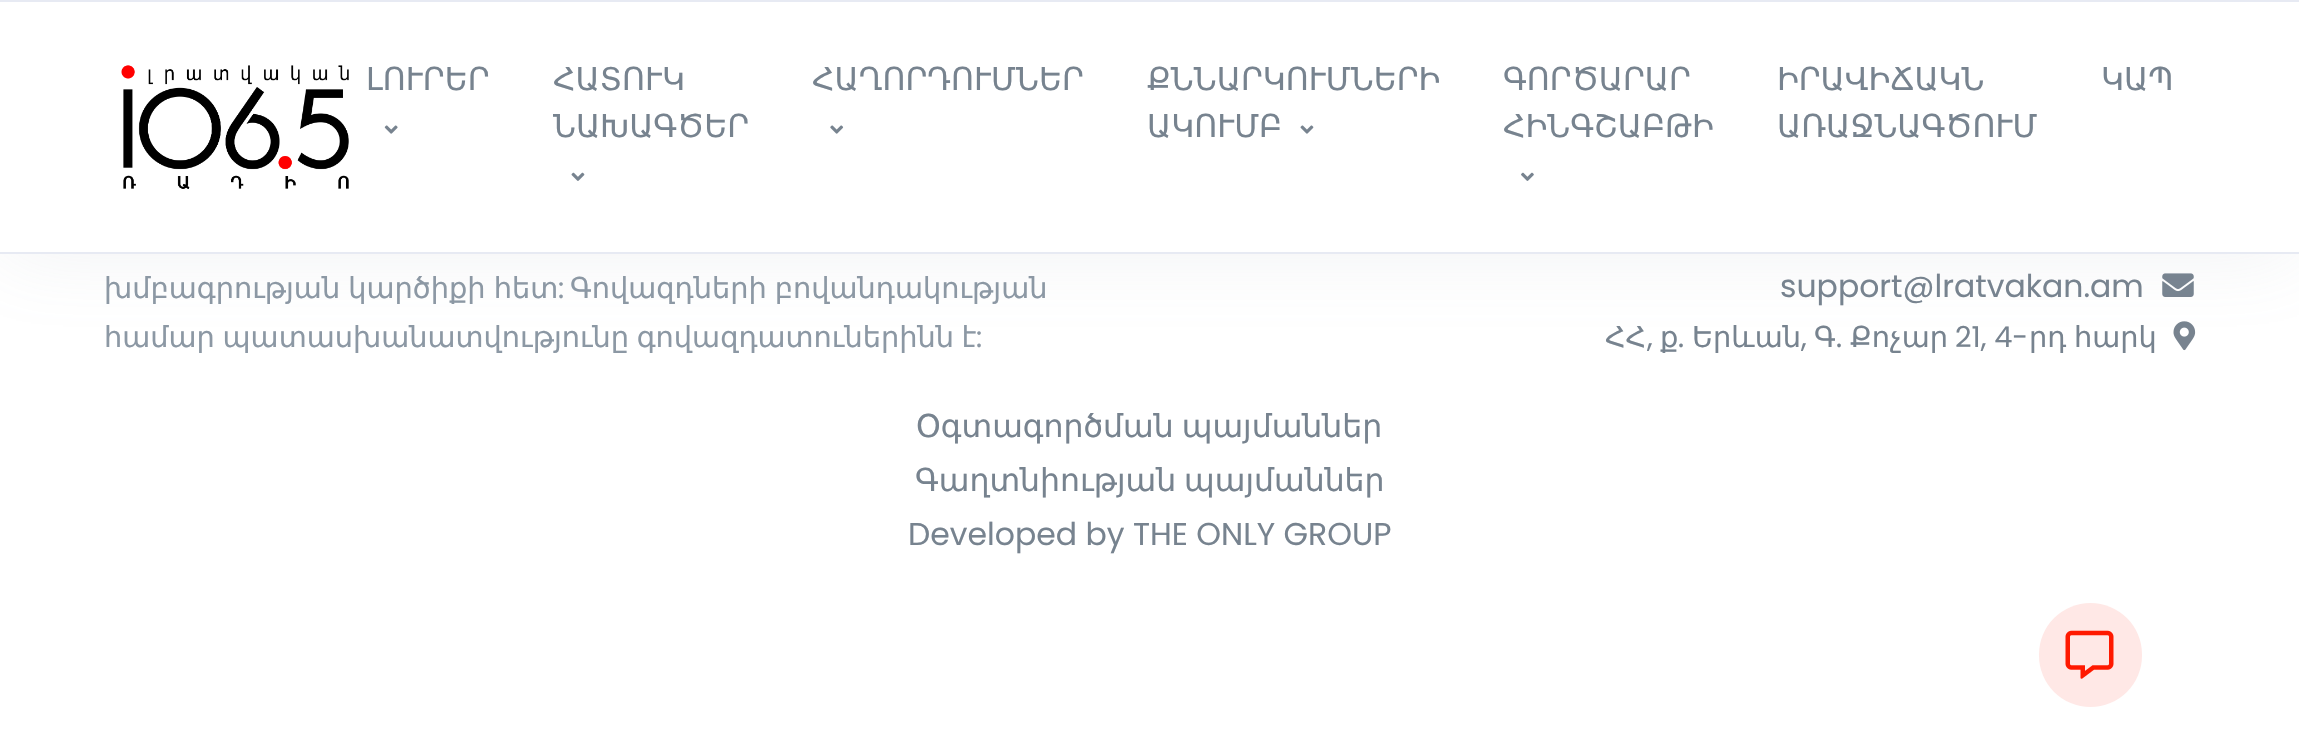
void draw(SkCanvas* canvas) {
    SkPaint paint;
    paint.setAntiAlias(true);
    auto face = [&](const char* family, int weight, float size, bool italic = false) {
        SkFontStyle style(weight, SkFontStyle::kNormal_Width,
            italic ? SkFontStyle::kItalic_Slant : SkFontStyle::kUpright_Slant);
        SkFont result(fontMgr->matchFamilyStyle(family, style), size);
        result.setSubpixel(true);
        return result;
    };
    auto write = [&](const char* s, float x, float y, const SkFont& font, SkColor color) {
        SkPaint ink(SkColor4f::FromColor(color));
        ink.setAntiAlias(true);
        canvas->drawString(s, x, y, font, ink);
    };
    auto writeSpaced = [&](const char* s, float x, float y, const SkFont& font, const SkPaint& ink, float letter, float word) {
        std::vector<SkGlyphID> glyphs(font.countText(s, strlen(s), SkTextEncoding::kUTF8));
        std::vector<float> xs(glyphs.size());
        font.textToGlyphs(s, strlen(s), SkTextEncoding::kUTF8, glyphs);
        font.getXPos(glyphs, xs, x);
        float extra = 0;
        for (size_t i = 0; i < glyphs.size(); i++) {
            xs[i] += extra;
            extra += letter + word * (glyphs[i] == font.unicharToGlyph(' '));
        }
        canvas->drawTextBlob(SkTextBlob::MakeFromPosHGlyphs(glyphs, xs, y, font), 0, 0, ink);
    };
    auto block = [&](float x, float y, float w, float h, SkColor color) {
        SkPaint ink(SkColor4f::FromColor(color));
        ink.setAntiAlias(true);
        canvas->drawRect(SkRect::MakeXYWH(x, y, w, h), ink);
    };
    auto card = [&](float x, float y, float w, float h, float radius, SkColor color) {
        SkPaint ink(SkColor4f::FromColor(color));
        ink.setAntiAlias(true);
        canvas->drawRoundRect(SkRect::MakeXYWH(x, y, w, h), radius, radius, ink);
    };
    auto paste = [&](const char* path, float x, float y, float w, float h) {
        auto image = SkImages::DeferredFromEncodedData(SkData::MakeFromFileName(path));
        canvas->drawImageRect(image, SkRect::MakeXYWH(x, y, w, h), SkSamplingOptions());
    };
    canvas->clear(SK_ColorWHITE);
    paste("pic7.png", 2162, 273, 32, 24);
    paste("pic8.png", 2173, 321, 23, 30);
    paint.setColor(SkColorSetARGB(31, 140, 152, 164));
    paint.setMaskFilter(SkMaskFilter::MakeBlur(kNormal_SkBlurStyle, 39.5f));
    canvas->drawRect(SkRect::MakeXYWH(0, 0, 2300, 254), paint);
    paint.setMaskFilter(nullptr);
    block(0, 2, 2299, 250, SK_ColorWHITE);
    block(0, 252, 2299, 2, SkColorSetRGB(231, 234, 243));
    block(0, 0, 2299, 2, SkColorSetRGB(231, 234, 243));
    paste("pic1.png", 121, 65, 228, 124);
    auto kFont1 = face("DejaVu Sans", 400, 31.5f);
    write("ԼՈՒՐԵՐ", 366, 90, kFont1, SkColorSetRGB(119, 131, 143));
    paste("pic2.png", 384, 125, 14, 9);
    write("ՀԱՏՈՒԿ", 553, 90, kFont1, SkColorSetRGB(119, 131, 143));
    write("ՆԱԽԱԳԾԵՐ", 553, 137, kFont1, SkColorSetRGB(119, 131, 143));
    paste("pic3.png", 571, 172, 14, 9);
    write("ՀԱՂՈՐԴՈՒՄՆԵՐ", 812, 90, kFont1, SkColorSetRGB(119, 131, 143));
    paste("pic4.png", 830, 125, 14, 9);
    write("ՔՆՆԱՐԿՈՒՄՆԵՐԻ", 1147, 90, kFont1, SkColorSetRGB(119, 131, 143));
    write("ԱԿՈՒՄԲ", 1147, 137, kFont1, SkColorSetRGB(119, 131, 143));
    paste("pic5.png", 1300, 125, 14, 9);
    write("ԳՈՐԾԱՐԱՐ", 1503, 90, kFont1, SkColorSetRGB(119, 131, 143));
    write("ՀԻՆԳՇԱԲԹԻ", 1503, 137, kFont1, SkColorSetRGB(119, 131, 143));
    paste("pic6.png", 1521, 172, 13, 9);
    write("ԻՐԱՎԻՃԱԿՆ", 1777, 90, kFont1, SkColorSetRGB(119, 131, 143));
    write("ԱՌԱՋՆԱԳԾՈՒՄ", 1777, 137, kFont1, SkColorSetRGB(119, 131, 143));
    write("ԿԱՊ", 2101, 90, kFont1, SkColorSetRGB(119, 131, 143));
    auto kFont2 = face("DejaVu Sans", 400, 28.8f);
    paint.setColor(SkColorSetRGB(140, 152, 164));
    writeSpaced("խմբագրության կարծիքի հետ", 104, 298, kFont2, paint, 0, -1);
    auto kFont3 = face("Poppins", 400, 28.8f);
    write(":", 558, 298, kFont3, SkColorSetRGB(140, 152, 164));
    writeSpaced("Գովազդների բովանդակության", 570, 298, kFont2, paint, 0, -1);
    writeSpaced("համար պատասխանատվությունը գովազդատուներինն է", 104, 347, kFont2, paint, 0, -1.5f);
    write(":", 976, 347, kFont3, SkColorSetRGB(140, 152, 164));
    auto kFont4 = face("Poppins", 400, 31.5f);
    write("support@lratvakan.am", 1780, 297, kFont4, SkColorSetRGB(119, 131, 143));
    write("ՀՀ", 1605, 347, kFont2, SkColorSetRGB(119, 131, 143));
    write(",", 1647, 347, kFont3, SkColorSetRGB(119, 131, 143));
    write("ք", 1660, 347, kFont2, SkColorSetRGB(119, 131, 143));
    write(".", 1678, 347, kFont3, SkColorSetRGB(119, 131, 143));
    write("Երևան", 1692, 347, kFont2, SkColorSetRGB(119, 131, 143));
    write(",", 1801, 347, kFont3, SkColorSetRGB(119, 131, 143));
    write("Գ", 1814, 347, kFont2, SkColorSetRGB(119, 131, 143));
    write(".", 1836, 347, kFont3, SkColorSetRGB(119, 131, 143));
    write("Քոչար", 1850, 347, kFont2, SkColorSetRGB(119, 131, 143));
    write("21, 4-", 1955, 347, kFont3, SkColorSetRGB(119, 131, 143));
    write("րդ", 2029, 347, kFont2, SkColorSetRGB(119, 131, 143));
    write("հարկ", 2074, 347, kFont2, SkColorSetRGB(119, 131, 143));
    paint.setColor(SkColorSetRGB(119, 131, 143));
    writeSpaced("Օգտագործման պայմաններ", 916, 437, kFont1, paint, 0, -2);
    writeSpaced("Գաղտնիության պայմաններ", 915, 491, kFont1, paint, 0, -2);
    write("Developed by THE ONLY GROUP", 908, 545, kFont4, SkColorSetRGB(119, 131, 143));
    card(2039, 603, 103, 104, 51.5f, SkColorSetRGB(255, 232, 230));
    paste("pic9.png", 2065, 630, 49, 49);
}
